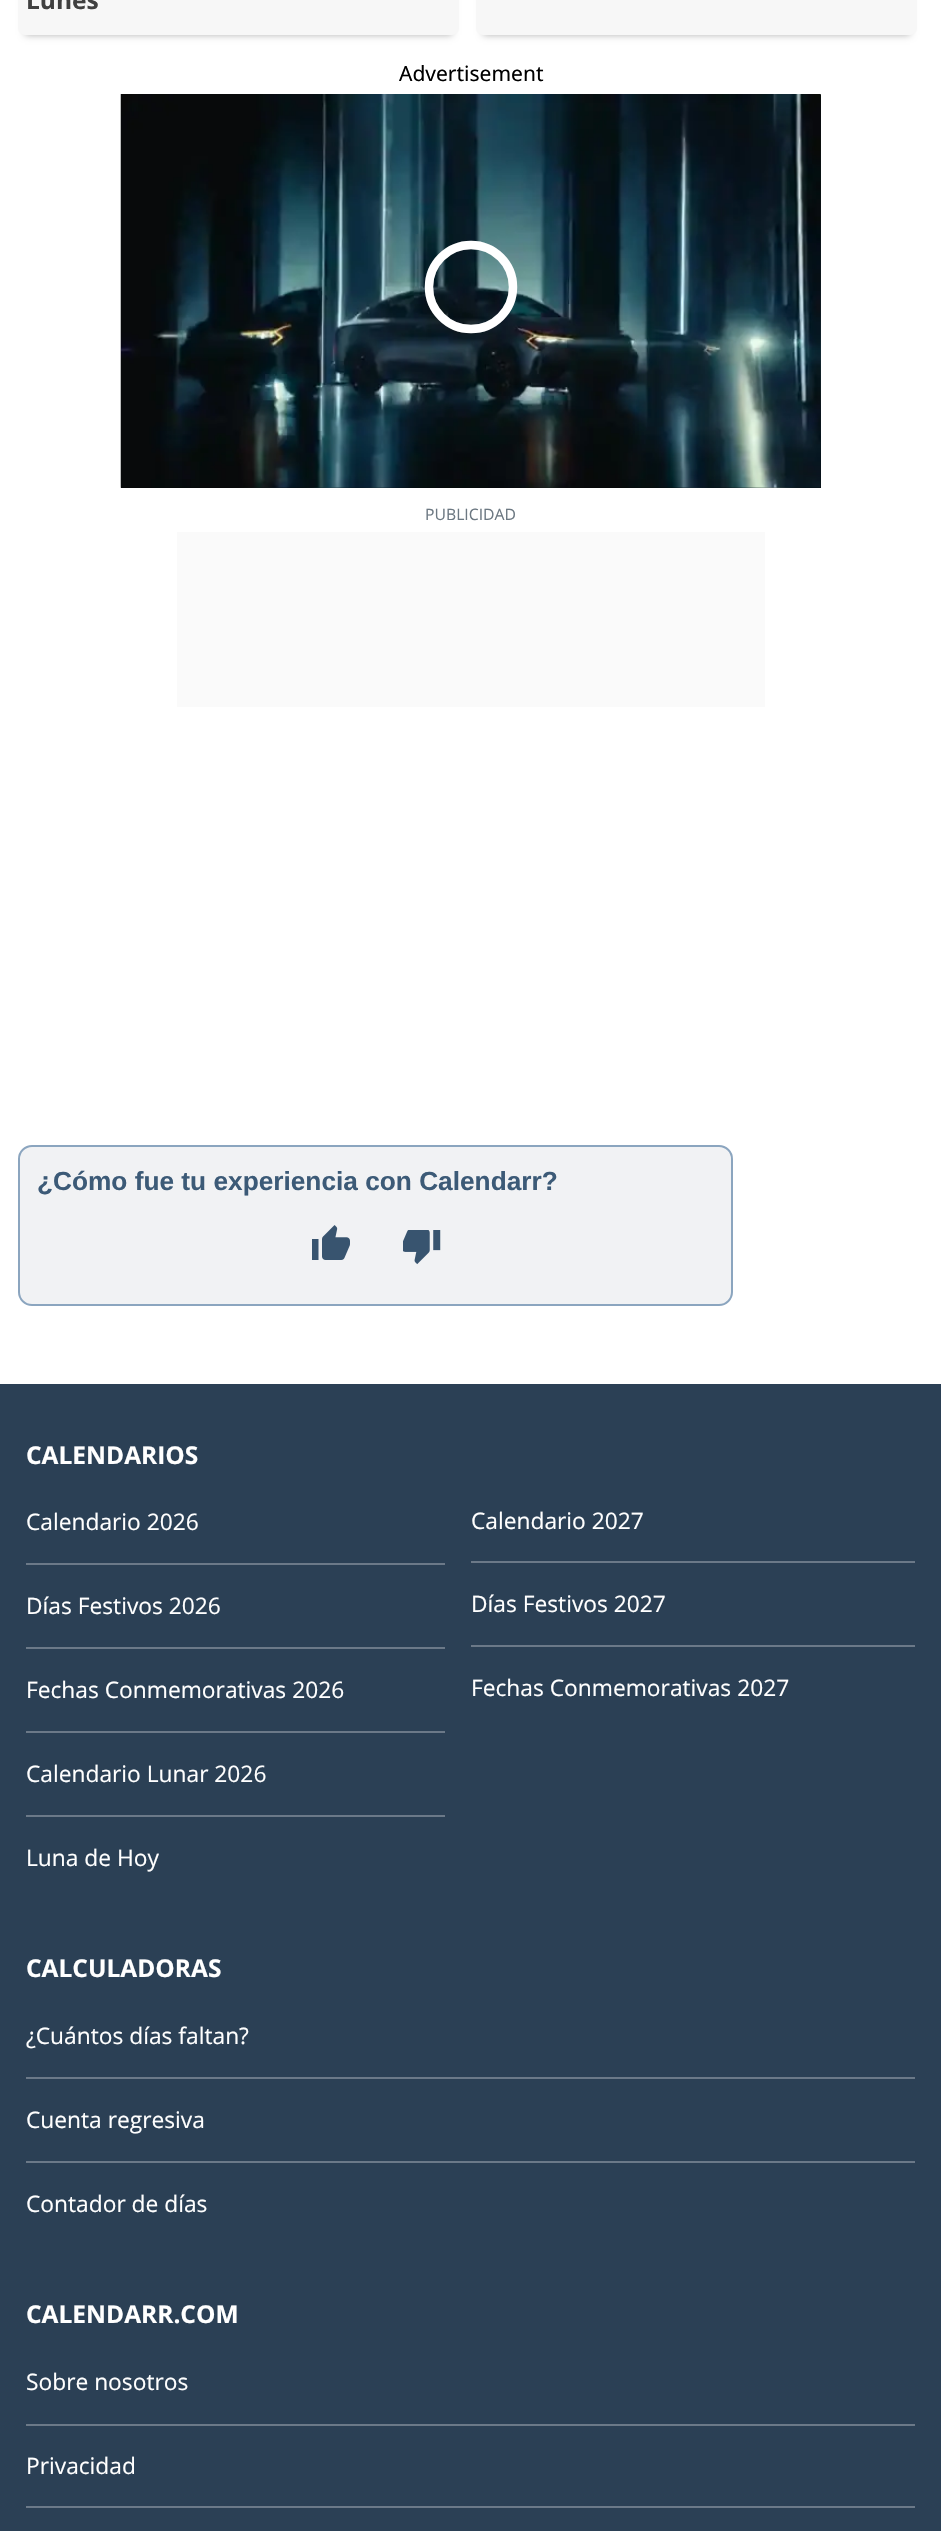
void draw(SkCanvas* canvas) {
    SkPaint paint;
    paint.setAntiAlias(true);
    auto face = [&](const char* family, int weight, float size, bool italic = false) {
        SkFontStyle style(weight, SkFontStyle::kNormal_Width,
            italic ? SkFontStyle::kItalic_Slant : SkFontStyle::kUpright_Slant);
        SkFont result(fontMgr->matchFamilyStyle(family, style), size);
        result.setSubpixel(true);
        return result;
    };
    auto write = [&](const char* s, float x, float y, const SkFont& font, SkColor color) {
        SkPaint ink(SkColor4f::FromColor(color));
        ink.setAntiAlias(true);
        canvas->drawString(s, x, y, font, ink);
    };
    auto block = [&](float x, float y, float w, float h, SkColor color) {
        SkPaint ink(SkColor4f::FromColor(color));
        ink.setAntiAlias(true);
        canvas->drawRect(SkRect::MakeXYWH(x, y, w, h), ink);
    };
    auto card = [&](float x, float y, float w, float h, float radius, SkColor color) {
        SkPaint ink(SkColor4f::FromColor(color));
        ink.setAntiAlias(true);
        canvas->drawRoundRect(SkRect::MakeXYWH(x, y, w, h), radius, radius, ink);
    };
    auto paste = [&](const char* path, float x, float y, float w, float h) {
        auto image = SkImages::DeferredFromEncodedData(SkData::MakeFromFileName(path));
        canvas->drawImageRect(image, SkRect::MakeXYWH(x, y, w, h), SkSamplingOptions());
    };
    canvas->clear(SK_ColorWHITE);
    paint.setColor(SkColorSetARGB(77, 0, 0, 0));
    paint.setMaskFilter(SkMaskFilter::MakeBlur(kNormal_SkBlurStyle, 3.5f));
    canvas->drawRect(SkRect::MakeXYWH(25, -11, 427, 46), paint);
    paint.setMaskFilter(nullptr);
    card(18, -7, 441, 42, 7, SkColorSetRGB(247, 247, 247));
    auto kFont1 = face("Open Sans", 700, 24.5f);
    write("Lunes", 26, 9, kFont1, SkColorSetRGB(64, 64, 64));
    paint.setMaskFilter(SkMaskFilter::MakeBlur(kNormal_SkBlurStyle, 3.5f));
    canvas->drawRect(SkRect::MakeXYWH(483, -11, 427, 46), paint);
    paint.setMaskFilter(nullptr);
    card(476, -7, 441, 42, 7, SkColorSetRGB(247, 247, 247));
    auto kFont2 = face("Noto Sans", 400, 21);
    write("Advertisement", 399, 81, kFont2, SK_ColorBLACK);
    block(121, 95, 700, 393, SK_ColorBLACK);
    paste("pic1.png", 120, 94, 701, 394);
    paste("pic2.png", 120, 94, 701, 394);
    paint.setStyle(SkPaint::kStroke_Style);
    paint.setStrokeWidth(8.4f);
    paint.setColor(SkColorSetARGB(51, 255, 255, 255));
    canvas->drawCircle(471, 287, 42, paint);
    paint.setColor(SK_ColorWHITE);
    canvas->drawCircle(471, 287, 42, paint);
    block(177, 532, 588, 175, SkColorSetRGB(250, 250, 250));
    auto kFont3 = face("Open Sans", 400, 15.75f);
    write("PUBLICIDAD", 425, 520, kFont3, SkColorSetRGB(108, 120, 130));
    paint.setStyle(SkPaint::kFill_Style);
    paint.setColor(SkColorSetRGB(241, 242, 244));
    canvas->drawRoundRect(SkRect::MakeXYWH(19, 1146, 713, 159), 13, 13, paint);
    paint.setStyle(SkPaint::kStroke_Style);
    paint.setStrokeWidth(2);
    paint.setColor(SkColorSetRGB(139, 165, 191));
    canvas->drawRoundRect(SkRect::MakeXYWH(19, 1146, 713, 159), 13, 13, paint);
    auto kFont4 = face("Liberation Sans", 700, 26.25f);
    write("¿Cómo fue tu experiencia con Calendarr?", 37, 1190, kFont4, SkColorSetRGB(60, 90, 119));
    paste("pic3.png", 312, 1225, 38, 35);
    paste("pic4.png", 403, 1230, 38, 35);
    block(0, 1384, 941, 1147, SkColorSetRGB(43, 64, 85));
    write("CALENDARIOS", 26, 1464, kFont1, SK_ColorWHITE);
    block(26, 1563, 419, 2, SkColorSetRGB(107, 121, 136));
    auto kFont5 = face("Open Sans", 400, 22.75f);
    write("Calendario 2026", 26, 1530, kFont5, SK_ColorWHITE);
    block(26, 1647, 419, 2, SkColorSetRGB(107, 121, 136));
    write("Días Festivos 2026", 26, 1614, kFont5, SK_ColorWHITE);
    block(26, 1731, 419, 2, SkColorSetRGB(107, 121, 136));
    write("Fechas Conmemorativas 2026", 26, 1698, kFont5, SK_ColorWHITE);
    block(26, 1815, 419, 2, SkColorSetRGB(107, 121, 136));
    write("Calendario Lunar 2026", 26, 1782, kFont5, SK_ColorWHITE);
    write("Luna de Hoy", 26, 1866, kFont5, SK_ColorWHITE);
    block(471, 1561, 444, 2, SkColorSetRGB(107, 121, 136));
    write("Calendario 2027", 471, 1529, kFont5, SK_ColorWHITE);
    block(471, 1645, 444, 2, SkColorSetRGB(107, 121, 136));
    write("Días Festivos 2027", 471, 1612, kFont5, SK_ColorWHITE);
    write("Fechas Conmemorativas 2027", 471, 1696, kFont5, SK_ColorWHITE);
    write("CALCULADORAS", 26, 1977, kFont1, SK_ColorWHITE);
    block(26, 2077, 889, 2, SkColorSetRGB(107, 121, 136));
    write("¿Cuántos días faltan?", 26, 2044, kFont5, SK_ColorWHITE);
    block(26, 2161, 889, 2, SkColorSetRGB(107, 121, 136));
    write("Cuenta regresiva", 26, 2128, kFont5, SK_ColorWHITE);
    write("Contador de días", 26, 2212, kFont5, SK_ColorWHITE);
    write("CALENDARR.COM", 26, 2323, kFont1, SK_ColorWHITE);
    block(26, 2424, 889, 2, SkColorSetRGB(107, 121, 136));
    write("Sobre nosotros", 26, 2390, kFont5, SK_ColorWHITE);
    block(26, 2506, 889, 2, SkColorSetRGB(107, 121, 136));
    write("Privacidad", 26, 2474, kFont5, SK_ColorWHITE);
}
